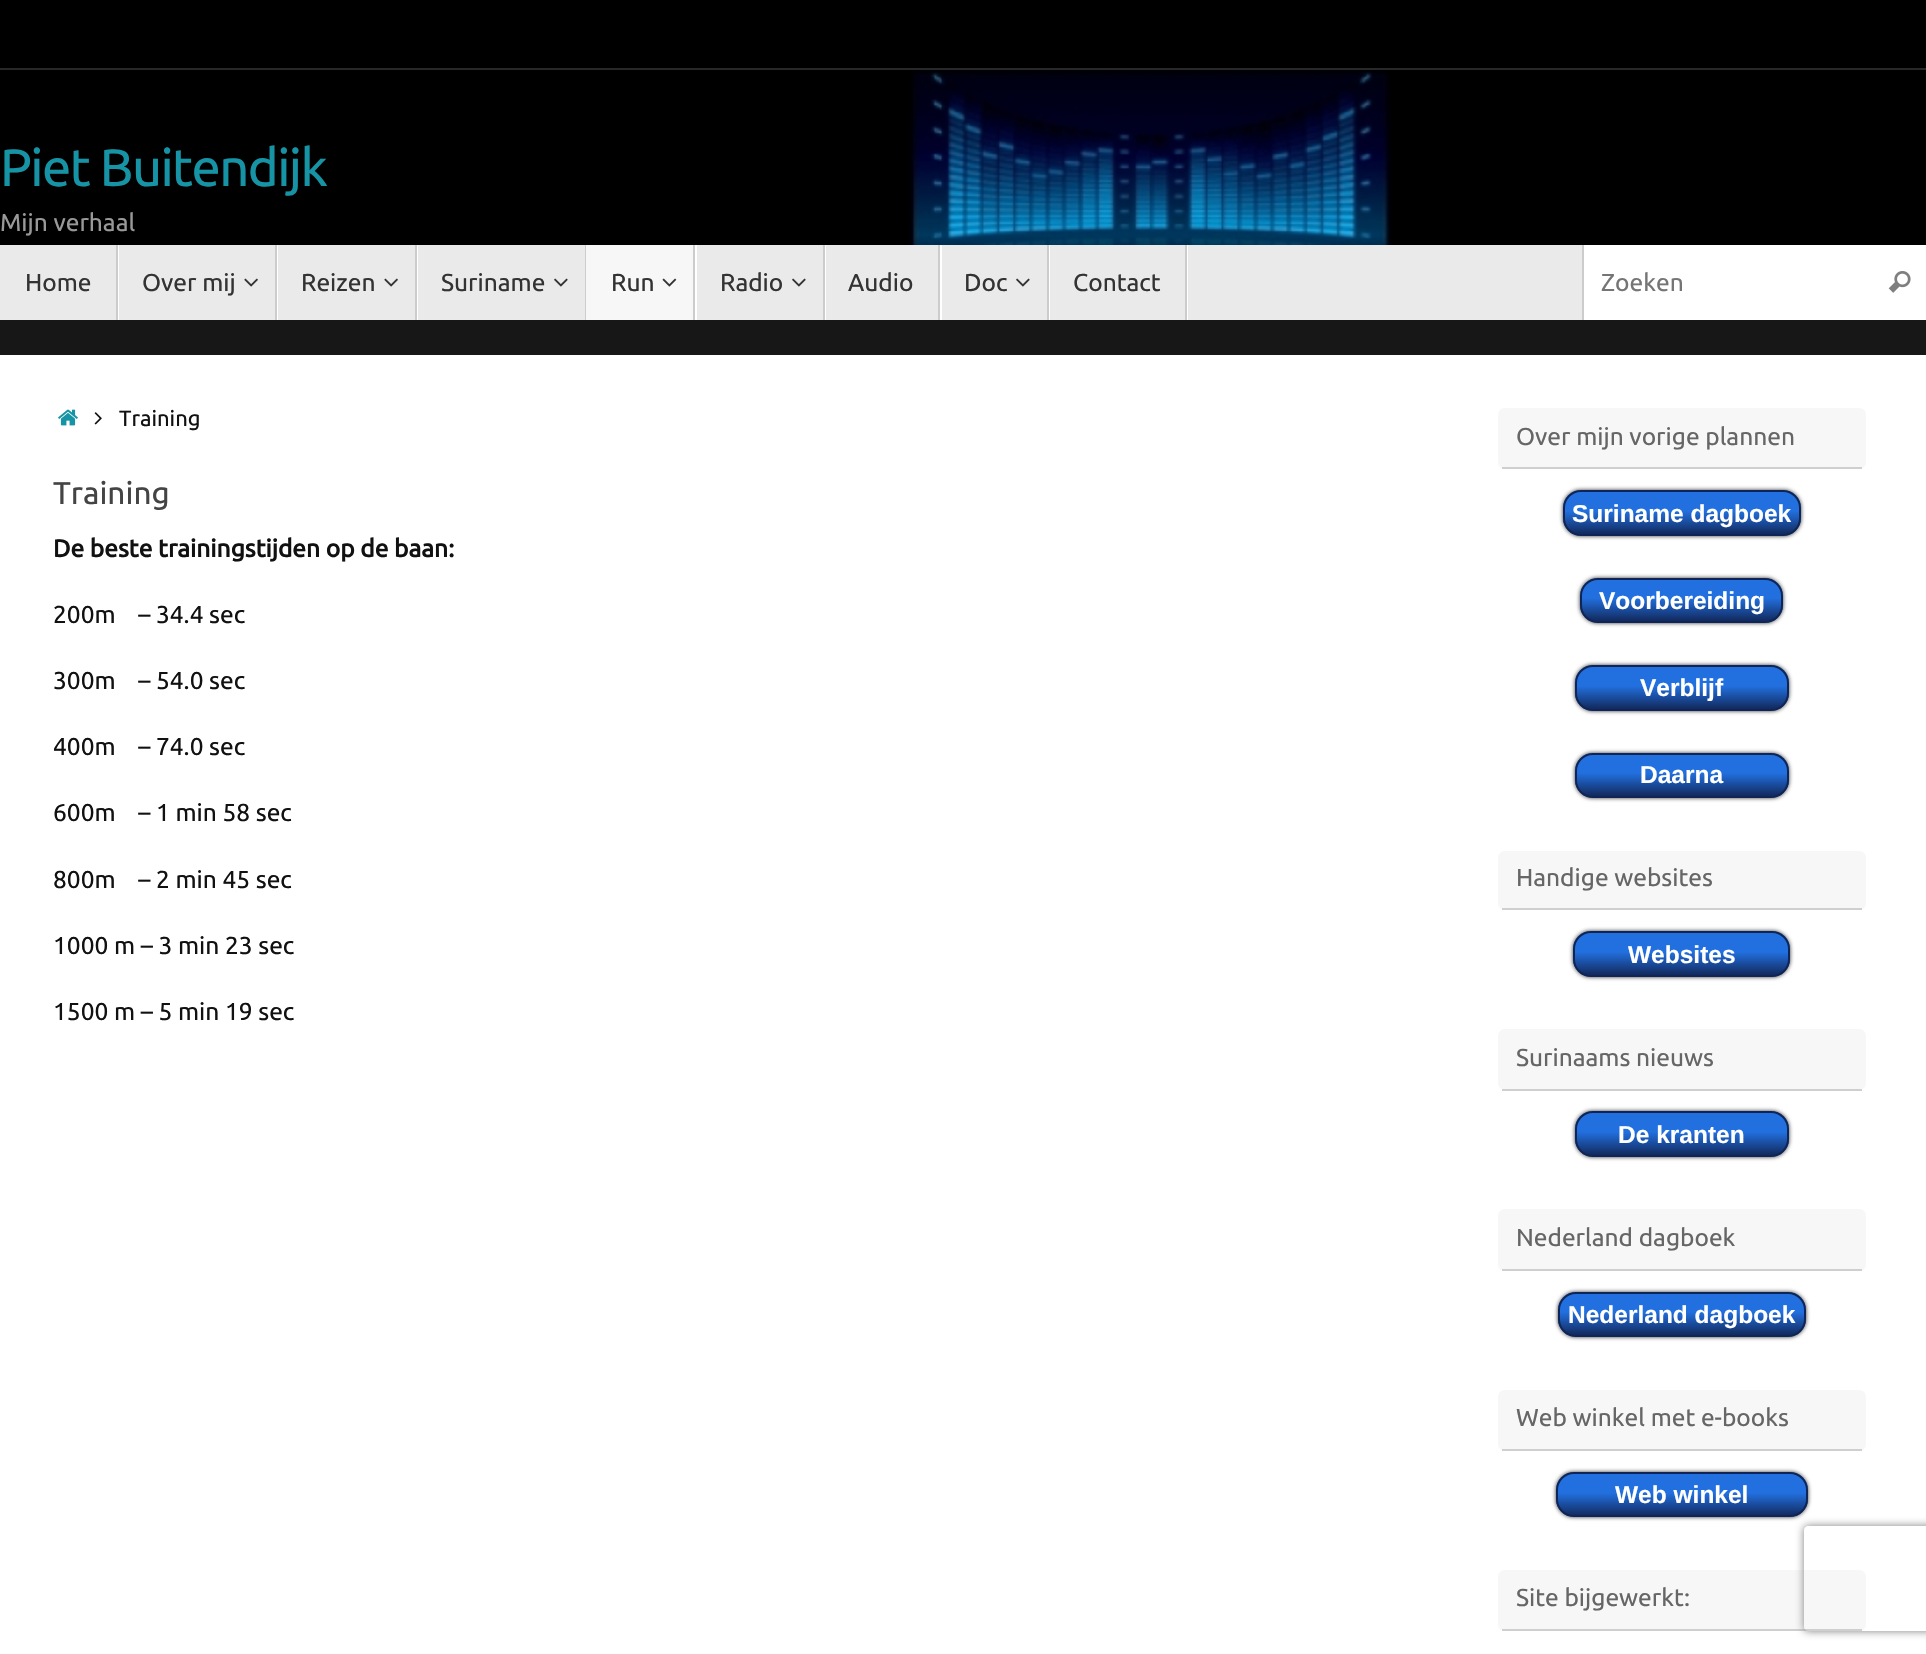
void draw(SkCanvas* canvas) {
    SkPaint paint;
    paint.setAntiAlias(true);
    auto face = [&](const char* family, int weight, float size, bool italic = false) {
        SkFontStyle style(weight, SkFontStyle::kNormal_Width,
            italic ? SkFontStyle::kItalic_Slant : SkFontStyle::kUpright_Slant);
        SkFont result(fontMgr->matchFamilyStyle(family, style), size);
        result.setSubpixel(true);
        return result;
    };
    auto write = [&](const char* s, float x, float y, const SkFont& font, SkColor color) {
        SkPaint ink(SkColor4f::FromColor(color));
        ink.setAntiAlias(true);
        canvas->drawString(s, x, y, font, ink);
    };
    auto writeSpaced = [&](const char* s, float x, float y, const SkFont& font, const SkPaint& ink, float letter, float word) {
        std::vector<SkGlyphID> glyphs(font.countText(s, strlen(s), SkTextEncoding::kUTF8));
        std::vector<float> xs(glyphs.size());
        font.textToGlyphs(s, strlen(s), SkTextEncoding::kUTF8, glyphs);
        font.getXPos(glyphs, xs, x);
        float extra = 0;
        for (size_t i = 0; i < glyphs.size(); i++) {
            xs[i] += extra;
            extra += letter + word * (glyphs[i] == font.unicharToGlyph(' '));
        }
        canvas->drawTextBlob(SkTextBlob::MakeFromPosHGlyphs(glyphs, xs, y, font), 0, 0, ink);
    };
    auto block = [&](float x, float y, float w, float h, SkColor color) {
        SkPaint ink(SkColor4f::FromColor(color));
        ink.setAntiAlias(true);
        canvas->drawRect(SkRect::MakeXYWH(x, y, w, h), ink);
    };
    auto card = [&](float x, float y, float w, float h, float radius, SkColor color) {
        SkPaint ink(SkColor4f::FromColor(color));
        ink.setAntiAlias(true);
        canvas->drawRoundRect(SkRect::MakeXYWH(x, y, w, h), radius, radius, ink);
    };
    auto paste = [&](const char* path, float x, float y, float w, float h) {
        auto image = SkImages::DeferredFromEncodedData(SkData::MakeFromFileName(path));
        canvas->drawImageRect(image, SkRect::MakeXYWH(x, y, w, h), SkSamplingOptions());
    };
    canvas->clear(SkColorSetRGB(23, 23, 23));
    block(0, 0, 1926, 68, SK_ColorBLACK);
    block(0, 68, 1926, 2, SkColorSetRGB(40, 40, 40));
    paste("pic1.png", 0, 70, 1926, 175);
    auto kFont1 = face("Ubuntu", 400, 52.5f);
    paint.setColor(SkColorSetRGB(22, 147, 165));
    writeSpaced("Piet Buitendijk", 0, 186, kFont1, paint, -1.6f, 0);
    auto kFont2 = face("Ubuntu", 400, 24.5f);
    write("Mijn verhaal", 0, 231, kFont2, SkColorSetRGB(153, 153, 153));
    block(0, 245, 1582, 75, SkColorSetRGB(234, 234, 234));
    block(118, 245, 1, 75, SK_ColorWHITE);
    block(116, 245, 2, 75, SkColorSetRGB(204, 204, 204));
    write("Home", 25, 291, kFont2, SkColorSetRGB(51, 51, 51));
    block(277, 245, 1, 75, SK_ColorWHITE);
    block(275, 245, 2, 75, SkColorSetRGB(204, 204, 204));
    write("Over mij", 142, 291, kFont2, SkColorSetRGB(51, 51, 51));
    paste("pic2.png", 244, 278, 14, 9);
    block(417, 245, 1, 75, SK_ColorWHITE);
    block(415, 245, 2, 75, SkColorSetRGB(204, 204, 204));
    write("Reizen", 301, 291, kFont2, SkColorSetRGB(51, 51, 51));
    paste("pic2.png", 384, 278, 14, 9);
    block(585, 245, 1, 75, SkColorSetRGB(204, 204, 204));
    write("Suriname", 441, 291, kFont2, SkColorSetRGB(51, 51, 51));
    paste("pic3.png", 554, 278, 14, 9);
    block(586, 245, 107, 75, SkColorSetRGB(247, 247, 247));
    block(695, 245, 2, 75, SK_ColorWHITE);
    block(693, 245, 2, 75, SkColorSetRGB(204, 204, 204));
    write("Run", 611, 291, kFont2, SkColorSetRGB(51, 51, 51));
    paste("pic4.png", 662, 278, 15, 9);
    block(825, 245, 1, 75, SK_ColorWHITE);
    block(823, 245, 2, 75, SkColorSetRGB(204, 204, 204));
    write("Radio", 720, 291, kFont2, SkColorSetRGB(51, 51, 51));
    paste("pic3.png", 792, 278, 14, 9);
    block(940, 245, 2, 75, SK_ColorWHITE);
    block(938, 245, 2, 75, SkColorSetRGB(204, 204, 204));
    write("Audio", 848, 291, kFont2, SkColorSetRGB(51, 51, 51));
    block(1049, 245, 1, 75, SK_ColorWHITE);
    block(1047, 245, 2, 75, SkColorSetRGB(204, 204, 204));
    write("Doc", 964, 291, kFont2, SkColorSetRGB(51, 51, 51));
    paste("pic3.png", 1016, 278, 14, 9);
    block(1187, 245, 1, 75, SK_ColorWHITE);
    block(1185, 245, 2, 75, SkColorSetRGB(204, 204, 204));
    write("Contact", 1073, 291, kFont2, SkColorSetRGB(51, 51, 51));
    block(1584, 245, 342, 75, SK_ColorWHITE);
    block(1582, 245, 2, 75, SkColorSetRGB(204, 204, 204));
    write("Zoeken", 1601, 291, kFont2, SkColorSetRGB(117, 117, 117));
    paste("pic5.png", 1888, 271, 23, 22);
    block(0, 355, 1926, 1299, SK_ColorWHITE);
    paste("pic6.png", 58, 409, 20, 17);
    paste("pic7.png", 94, 412, 8, 13);
    auto kFont3 = face("Ubuntu", 400, 22);
    write("Training", 119, 426, kFont3, SkColorSetRGB(17, 17, 17));
    auto kFont4 = face("Ubuntu", 400, 31.5f);
    write("Training", 53, 504, kFont4, SkColorSetRGB(68, 68, 68));
    auto kFont5 = face("Ubuntu", 700, 24.5f);
    write("De beste trainingstijden op de baan:", 53, 557, kFont5, SkColorSetRGB(17, 17, 17));
    write("200m    – 34.4 sec", 53, 623, kFont2, SkColorSetRGB(17, 17, 17));
    write("300m    – 54.0 sec", 53, 689, kFont2, SkColorSetRGB(17, 17, 17));
    write("400m    – 74.0 sec", 53, 755, kFont2, SkColorSetRGB(17, 17, 17));
    write("600m    – 1 min 58 sec", 53, 821, kFont2, SkColorSetRGB(17, 17, 17));
    write("800m    – 2 min 45 sec", 53, 888, kFont2, SkColorSetRGB(17, 17, 17));
    write("1000 m – 3 min 23 sec", 53, 954, kFont2, SkColorSetRGB(17, 17, 17));
    write("1500 m – 5 min 19 sec", 53, 1020, kFont2, SkColorSetRGB(17, 17, 17));
    card(1498, 408, 368, 61, 7, SkColorSetRGB(247, 247, 247));
    block(1502, 467, 360, 2, SkColorSetRGB(207, 207, 207));
    write("Over mijn vorige plannen", 1516, 445, kFont2, SkColorSetRGB(102, 102, 102));
    paint.setColor(SkColorSetRGB(51, 51, 51));
    paint.setMaskFilter(SkMaskFilter::MakeBlur(kNormal_SkBlurStyle, 2));
    canvas->drawRoundRect(SkRect::MakeXYWH(1563, 490, 238, 46), 18, 18, paint);
    paint.setMaskFilter(nullptr);
    canvas->save();
    canvas->clipPath(SkPathBuilder().moveTo(1581, 490).lineTo(1783, 490).cubicTo(1793, 490, 1801, 498, 1801, 508).lineTo(1801, 518).cubicTo(1801, 528, 1793, 536, 1783, 536).lineTo(1581, 536).cubicTo(1571, 536, 1563, 528, 1563, 518).lineTo(1563, 508).cubicTo(1563, 498, 1571, 490, 1581, 490).close().detach(), true);
    {
        const SkColor colors[] = {SkColorSetRGB(34, 112, 223), SkColorSetRGB(18, 41, 93)};
        const float stops[] = {0.45f, 1};
        const SkPoint ends[] = {{1682, 492}, {1682, 534}};
        paint.setShader(SkGradientShader::MakeLinear(ends, colors, stops, 2, SkTileMode::kClamp));
        paint.setAlpha(255);
    }
    canvas->drawRect(SkRect::MakeXYWH(1563, 492, 238, 42), paint);
    canvas->restore();
    paint.setStyle(SkPaint::kStroke_Style);
    paint.setStrokeWidth(2);
    paint.setShader(nullptr);
    paint.setColor(SkColorSetRGB(15, 37, 87));
    canvas->drawRoundRect(SkRect::MakeXYWH(1564, 491, 236, 44), 17, 17, paint);
    auto kFont6 = face("Liberation Sans", 700, 24.5f);
    write("Suriname dagboek", 1572, 522, kFont6, SK_ColorWHITE);
    paint.setStyle(SkPaint::kFill_Style);
    paint.setColor(SkColorSetRGB(51, 51, 51));
    paint.setMaskFilter(SkMaskFilter::MakeBlur(kNormal_SkBlurStyle, 2));
    canvas->drawRoundRect(SkRect::MakeXYWH(1580, 578, 203, 45), 18, 18, paint);
    paint.setMaskFilter(nullptr);
    canvas->save();
    canvas->clipPath(SkPathBuilder().moveTo(1598, 578).lineTo(1765, 578).cubicTo(1775, 578, 1783, 586, 1783, 596).lineTo(1783, 605).cubicTo(1783, 615, 1775, 623, 1765, 623).lineTo(1598, 623).cubicTo(1588, 623, 1580, 615, 1580, 605).lineTo(1580, 596).cubicTo(1580, 586, 1588, 578, 1598, 578).close().detach(), true);
    {
        const SkColor colors[] = {SkColorSetRGB(34, 112, 223), SkColorSetRGB(18, 41, 93)};
        const float stops[] = {0.45f, 1};
        const SkPoint ends[] = {{1682, 579}, {1682, 621}};
        paint.setShader(SkGradientShader::MakeLinear(ends, colors, stops, 2, SkTileMode::kClamp));
        paint.setAlpha(255);
    }
    canvas->drawRect(SkRect::MakeXYWH(1580, 579, 203, 42), paint);
    canvas->restore();
    paint.setStyle(SkPaint::kStroke_Style);
    paint.setShader(nullptr);
    paint.setColor(SkColorSetRGB(15, 37, 87));
    canvas->drawRoundRect(SkRect::MakeXYWH(1581, 579, 201, 43), 17, 17, paint);
    write("Voorbereiding", 1599, 609, kFont6, SK_ColorWHITE);
    paint.setStyle(SkPaint::kFill_Style);
    paint.setColor(SkColorSetRGB(51, 51, 51));
    paint.setMaskFilter(SkMaskFilter::MakeBlur(kNormal_SkBlurStyle, 2));
    canvas->drawRoundRect(SkRect::MakeXYWH(1575, 665, 214, 46), 18, 18, paint);
    paint.setMaskFilter(nullptr);
    canvas->save();
    canvas->clipPath(SkPathBuilder().moveTo(1593, 665).lineTo(1771, 665).cubicTo(1781, 665, 1789, 673, 1789, 683).lineTo(1789, 693).cubicTo(1789, 703, 1781, 711, 1771, 711).lineTo(1593, 711).cubicTo(1583, 711, 1575, 703, 1575, 693).lineTo(1575, 683).cubicTo(1575, 673, 1583, 665, 1593, 665).close().detach(), true);
    {
        const SkColor colors[] = {SkColorSetRGB(34, 112, 223), SkColorSetRGB(18, 41, 93)};
        const float stops[] = {0.45f, 1};
        const SkPoint ends[] = {{1682, 667}, {1682, 709}};
        paint.setShader(SkGradientShader::MakeLinear(ends, colors, stops, 2, SkTileMode::kClamp));
        paint.setAlpha(255);
    }
    canvas->drawRect(SkRect::MakeXYWH(1575, 667, 214, 42), paint);
    canvas->restore();
    paint.setStyle(SkPaint::kStroke_Style);
    paint.setShader(nullptr);
    paint.setColor(SkColorSetRGB(15, 37, 87));
    canvas->drawRoundRect(SkRect::MakeXYWH(1576, 666, 212, 44), 17, 17, paint);
    write("Verblijf", 1640, 696, kFont6, SK_ColorWHITE);
    paint.setStyle(SkPaint::kFill_Style);
    paint.setColor(SkColorSetRGB(51, 51, 51));
    paint.setMaskFilter(SkMaskFilter::MakeBlur(kNormal_SkBlurStyle, 2));
    canvas->drawRoundRect(SkRect::MakeXYWH(1575, 753, 214, 45), 18, 18, paint);
    paint.setMaskFilter(nullptr);
    canvas->save();
    canvas->clipPath(SkPathBuilder().moveTo(1593, 753).lineTo(1771, 753).cubicTo(1781, 753, 1789, 761, 1789, 771).lineTo(1789, 780).cubicTo(1789, 790, 1781, 798, 1771, 798).lineTo(1593, 798).cubicTo(1583, 798, 1575, 790, 1575, 780).lineTo(1575, 771).cubicTo(1575, 761, 1583, 753, 1593, 753).close().detach(), true);
    {
        const SkColor colors[] = {SkColorSetRGB(34, 112, 223), SkColorSetRGB(18, 41, 93)};
        const float stops[] = {0.45f, 1};
        const SkPoint ends[] = {{1682, 754}, {1682, 796}};
        paint.setShader(SkGradientShader::MakeLinear(ends, colors, stops, 2, SkTileMode::kClamp));
        paint.setAlpha(255);
    }
    canvas->drawRect(SkRect::MakeXYWH(1575, 754, 214, 42), paint);
    canvas->restore();
    paint.setStyle(SkPaint::kStroke_Style);
    paint.setShader(nullptr);
    paint.setColor(SkColorSetRGB(15, 37, 87));
    canvas->drawRoundRect(SkRect::MakeXYWH(1576, 754, 212, 43), 17, 17, paint);
    write("Daarna", 1640, 783, kFont6, SK_ColorWHITE);
    card(1498, 851, 368, 59, 7, SkColorSetRGB(247, 247, 247));
    block(1502, 908, 360, 2, SkColorSetRGB(207, 207, 207));
    write("Handige websites", 1516, 886, kFont2, SkColorSetRGB(102, 102, 102));
    paint.setStyle(SkPaint::kFill_Style);
    paint.setColor(SkColorSetRGB(51, 51, 51));
    paint.setMaskFilter(SkMaskFilter::MakeBlur(kNormal_SkBlurStyle, 2));
    canvas->drawRoundRect(SkRect::MakeXYWH(1573, 931, 217, 46), 18, 18, paint);
    paint.setMaskFilter(nullptr);
    canvas->save();
    canvas->clipPath(SkPathBuilder().moveTo(1591, 931).lineTo(1772, 931).cubicTo(1782, 931, 1790, 939, 1790, 949).lineTo(1790, 959).cubicTo(1790, 969, 1782, 977, 1772, 977).lineTo(1591, 977).cubicTo(1581, 977, 1573, 969, 1573, 959).lineTo(1573, 949).cubicTo(1573, 939, 1581, 931, 1591, 931).close().detach(), true);
    {
        const SkColor colors[] = {SkColorSetRGB(34, 112, 223), SkColorSetRGB(18, 41, 93)};
        const float stops[] = {0.45f, 1};
        const SkPoint ends[] = {{1682, 933}, {1682, 975}};
        paint.setShader(SkGradientShader::MakeLinear(ends, colors, stops, 2, SkTileMode::kClamp));
        paint.setAlpha(255);
    }
    canvas->drawRect(SkRect::MakeXYWH(1573, 933, 217, 42), paint);
    canvas->restore();
    paint.setStyle(SkPaint::kStroke_Style);
    paint.setShader(nullptr);
    paint.setColor(SkColorSetRGB(15, 37, 87));
    canvas->drawRoundRect(SkRect::MakeXYWH(1574, 932, 215, 44), 17, 17, paint);
    write("Websites", 1628, 963, kFont6, SK_ColorWHITE);
    card(1498, 1029, 368, 61, 7, SkColorSetRGB(247, 247, 247));
    block(1502, 1089, 360, 2, SkColorSetRGB(207, 207, 207));
    write("Surinaams nieuws", 1516, 1066, kFont2, SkColorSetRGB(102, 102, 102));
    paint.setStyle(SkPaint::kFill_Style);
    paint.setColor(SkColorSetRGB(51, 51, 51));
    paint.setMaskFilter(SkMaskFilter::MakeBlur(kNormal_SkBlurStyle, 2));
    canvas->drawRoundRect(SkRect::MakeXYWH(1575, 1111, 214, 46), 18, 18, paint);
    paint.setMaskFilter(nullptr);
    canvas->save();
    canvas->clipPath(SkPathBuilder().moveTo(1593, 1111).lineTo(1771, 1111).cubicTo(1781, 1111, 1789, 1119, 1789, 1129).lineTo(1789, 1139).cubicTo(1789, 1149, 1781, 1157, 1771, 1157).lineTo(1593, 1157).cubicTo(1583, 1157, 1575, 1149, 1575, 1139).lineTo(1575, 1129).cubicTo(1575, 1119, 1583, 1111, 1593, 1111).close().detach(), true);
    {
        const SkColor colors[] = {SkColorSetRGB(34, 112, 223), SkColorSetRGB(18, 41, 93)};
        const float stops[] = {0.45f, 1};
        const SkPoint ends[] = {{1682, 1113}, {1682, 1155}};
        paint.setShader(SkGradientShader::MakeLinear(ends, colors, stops, 2, SkTileMode::kClamp));
        paint.setAlpha(255);
    }
    canvas->drawRect(SkRect::MakeXYWH(1575, 1113, 214, 42), paint);
    canvas->restore();
    paint.setStyle(SkPaint::kStroke_Style);
    paint.setShader(nullptr);
    paint.setColor(SkColorSetRGB(15, 37, 87));
    canvas->drawRoundRect(SkRect::MakeXYWH(1576, 1112, 212, 44), 17, 17, paint);
    write("De kranten", 1618, 1143, kFont6, SK_ColorWHITE);
    card(1498, 1209, 368, 62, 7, SkColorSetRGB(247, 247, 247));
    block(1502, 1269, 360, 2, SkColorSetRGB(207, 207, 207));
    write("Nederland dagboek", 1516, 1246, kFont2, SkColorSetRGB(102, 102, 102));
    paint.setStyle(SkPaint::kFill_Style);
    paint.setColor(SkColorSetRGB(51, 51, 51));
    paint.setMaskFilter(SkMaskFilter::MakeBlur(kNormal_SkBlurStyle, 2));
    canvas->drawRoundRect(SkRect::MakeXYWH(1558, 1292, 248, 45), 18, 18, paint);
    paint.setMaskFilter(nullptr);
    canvas->save();
    canvas->clipPath(SkPathBuilder().moveTo(1576, 1292).lineTo(1788, 1292).cubicTo(1798, 1292, 1806, 1300, 1806, 1310).lineTo(1806, 1319).cubicTo(1806, 1329, 1798, 1337, 1788, 1337).lineTo(1576, 1337).cubicTo(1566, 1337, 1558, 1329, 1558, 1319).lineTo(1558, 1310).cubicTo(1558, 1300, 1566, 1292, 1576, 1292).close().detach(), true);
    {
        const SkColor colors[] = {SkColorSetRGB(34, 112, 223), SkColorSetRGB(18, 41, 93)};
        const float stops[] = {0.45f, 1};
        const SkPoint ends[] = {{1682, 1293}, {1682, 1335}};
        paint.setShader(SkGradientShader::MakeLinear(ends, colors, stops, 2, SkTileMode::kClamp));
        paint.setAlpha(255);
    }
    canvas->drawRect(SkRect::MakeXYWH(1558, 1293, 248, 42), paint);
    canvas->restore();
    paint.setStyle(SkPaint::kStroke_Style);
    paint.setShader(nullptr);
    paint.setColor(SkColorSetRGB(15, 37, 87));
    canvas->drawRoundRect(SkRect::MakeXYWH(1559, 1293, 246, 43), 17, 17, paint);
    write("Nederland dagboek", 1568, 1323, kFont6, SK_ColorWHITE);
    card(1498, 1390, 368, 61, 7, SkColorSetRGB(247, 247, 247));
    block(1502, 1449, 360, 2, SkColorSetRGB(207, 207, 207));
    write("Web winkel met e-books", 1516, 1426, kFont2, SkColorSetRGB(102, 102, 102));
    paint.setStyle(SkPaint::kFill_Style);
    paint.setColor(SkColorSetRGB(51, 51, 51));
    paint.setMaskFilter(SkMaskFilter::MakeBlur(kNormal_SkBlurStyle, 2));
    canvas->drawRoundRect(SkRect::MakeXYWH(1556, 1472, 252, 45), 18, 18, paint);
    paint.setMaskFilter(nullptr);
    canvas->save();
    canvas->clipPath(SkPathBuilder().moveTo(1574, 1472).lineTo(1790, 1472).cubicTo(1800, 1472, 1808, 1480, 1808, 1490).lineTo(1808, 1499).cubicTo(1808, 1509, 1800, 1517, 1790, 1517).lineTo(1574, 1517).cubicTo(1564, 1517, 1556, 1509, 1556, 1499).lineTo(1556, 1490).cubicTo(1556, 1480, 1564, 1472, 1574, 1472).close().detach(), true);
    {
        const SkColor colors[] = {SkColorSetRGB(34, 112, 223), SkColorSetRGB(18, 41, 93)};
        const float stops[] = {0.45f, 1};
        const SkPoint ends[] = {{1682, 1474}, {1682, 1516}};
        paint.setShader(SkGradientShader::MakeLinear(ends, colors, stops, 2, SkTileMode::kClamp));
        paint.setAlpha(255);
    }
    canvas->drawRect(SkRect::MakeXYWH(1556, 1474, 252, 42), paint);
    canvas->restore();
    paint.setStyle(SkPaint::kStroke_Style);
    paint.setShader(nullptr);
    paint.setColor(SkColorSetRGB(15, 37, 87));
    canvas->drawRoundRect(SkRect::MakeXYWH(1557, 1473, 250, 43), 17, 17, paint);
    write("Web winkel", 1615, 1503, kFont6, SK_ColorWHITE);
    card(1498, 1570, 368, 61, 7, SkColorSetRGB(247, 247, 247));
    block(1502, 1629, 360, 2, SkColorSetRGB(207, 207, 207));
    write("Site bijgewerkt:", 1516, 1606, kFont2, SkColorSetRGB(102, 102, 102));
    canvas->save();
    canvas->clipPath(SkPathBuilder(SkPathFillType::kEvenOdd).moveTo(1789, 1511).lineTo(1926, 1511).lineTo(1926, 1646).lineTo(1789, 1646).close().moveTo(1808, 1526).lineTo(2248, 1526).cubicTo(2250, 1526, 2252, 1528, 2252, 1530).lineTo(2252, 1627).cubicTo(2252, 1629, 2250, 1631, 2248, 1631).lineTo(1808, 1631).cubicTo(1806, 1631, 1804, 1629, 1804, 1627).lineTo(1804, 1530).cubicTo(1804, 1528, 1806, 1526, 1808, 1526).close().detach(), true);
    paint.setStyle(SkPaint::kFill_Style);
    paint.setColor(SkColorSetRGB(128, 128, 128));
    paint.setMaskFilter(SkMaskFilter::MakeBlur(kNormal_SkBlurStyle, 4.5f));
    canvas->drawRoundRect(SkRect::MakeXYWH(1804, 1526, 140, 105), 4, 4, paint);
    paint.setMaskFilter(nullptr);
    canvas->restore();
}
